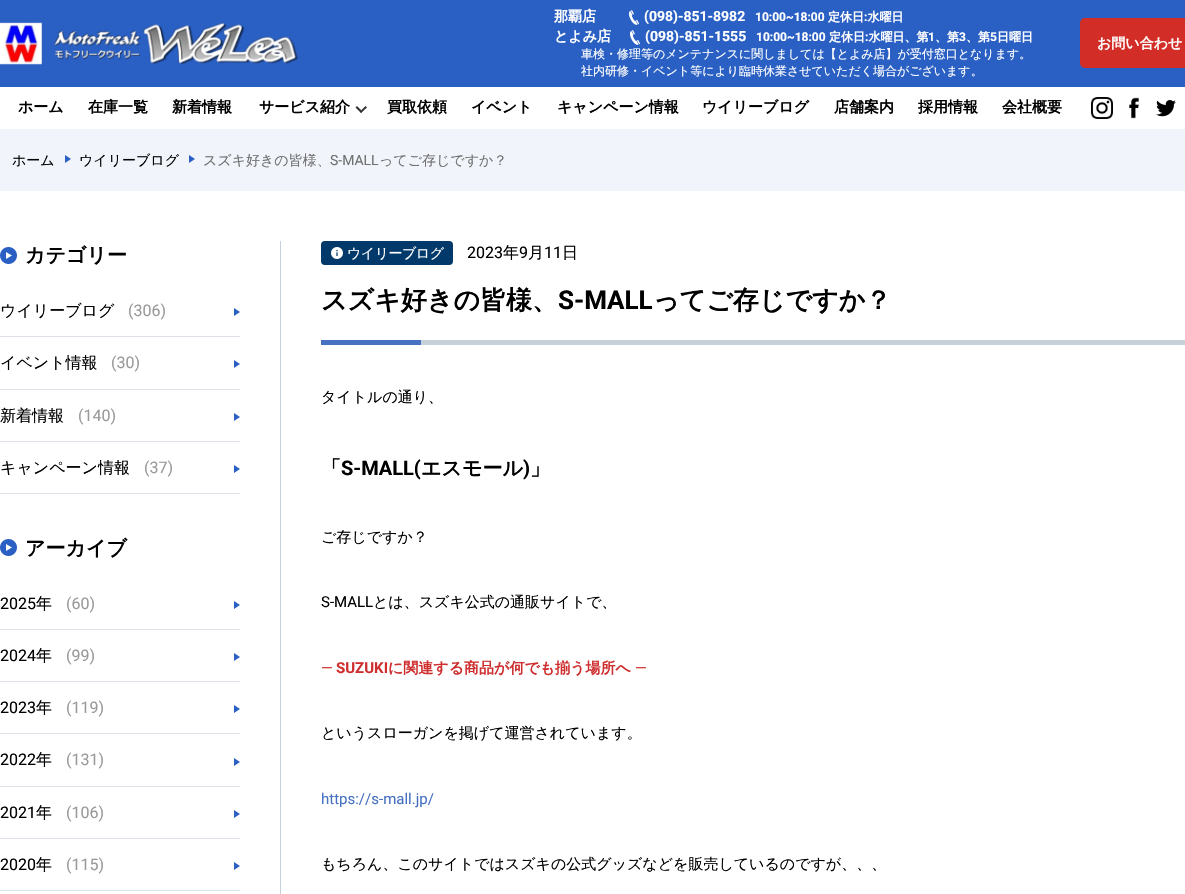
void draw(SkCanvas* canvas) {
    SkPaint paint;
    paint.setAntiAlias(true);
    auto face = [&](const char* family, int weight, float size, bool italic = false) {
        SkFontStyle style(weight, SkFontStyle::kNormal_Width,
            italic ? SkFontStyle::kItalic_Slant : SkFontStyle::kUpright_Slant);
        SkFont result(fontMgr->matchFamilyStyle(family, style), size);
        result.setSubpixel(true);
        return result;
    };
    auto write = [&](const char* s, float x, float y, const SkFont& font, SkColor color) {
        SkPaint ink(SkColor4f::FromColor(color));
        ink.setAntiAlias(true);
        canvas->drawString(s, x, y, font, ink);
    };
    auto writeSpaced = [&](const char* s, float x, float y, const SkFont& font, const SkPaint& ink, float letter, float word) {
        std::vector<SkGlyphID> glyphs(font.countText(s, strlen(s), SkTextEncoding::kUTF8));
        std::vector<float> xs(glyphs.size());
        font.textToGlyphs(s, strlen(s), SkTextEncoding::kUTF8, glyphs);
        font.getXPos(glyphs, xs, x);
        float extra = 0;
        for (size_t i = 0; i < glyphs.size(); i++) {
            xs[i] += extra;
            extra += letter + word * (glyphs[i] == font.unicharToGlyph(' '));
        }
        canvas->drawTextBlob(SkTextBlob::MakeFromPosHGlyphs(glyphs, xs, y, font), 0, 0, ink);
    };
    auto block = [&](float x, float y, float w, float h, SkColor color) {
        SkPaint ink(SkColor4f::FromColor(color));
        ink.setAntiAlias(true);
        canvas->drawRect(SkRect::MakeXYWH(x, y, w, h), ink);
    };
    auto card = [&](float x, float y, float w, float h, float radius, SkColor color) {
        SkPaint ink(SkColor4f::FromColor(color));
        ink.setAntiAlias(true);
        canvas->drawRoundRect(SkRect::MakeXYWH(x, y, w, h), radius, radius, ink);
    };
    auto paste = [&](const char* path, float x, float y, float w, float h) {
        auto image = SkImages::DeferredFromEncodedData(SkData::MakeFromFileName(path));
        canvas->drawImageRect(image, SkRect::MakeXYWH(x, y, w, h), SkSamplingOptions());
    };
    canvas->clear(SK_ColorWHITE);
    block(0, 0, 1185, 87, SkColorSetRGB(42, 95, 195));
    paste("pic1.png", 0, 22, 298, 43);
    auto kFont1 = face("WenQuanYi Zen Hei", 700, 14);
    write("那覇店", 554, 21, kFont1, SK_ColorWHITE);
    paste("pic2.png", 629, 10, 10, 15);
    auto kFont2 = face("Roboto", 700, 14);
    write("(098)-851-8982", 644, 21, kFont2, SK_ColorWHITE);
    auto kFont3 = face("Roboto", 700, 12);
    write("10:00~18:00", 755, 21, kFont3, SK_ColorWHITE);
    auto kFont4 = face("WenQuanYi Zen Hei", 700, 12);
    write("定休日 水曜日", 828, 21, kFont4, SK_ColorWHITE);
    write(":", 864, 21, kFont3, SK_ColorWHITE);
    write("とよみ店", 554, 41, kFont1, SK_ColorWHITE);
    paste("pic2.png", 630, 30, 10, 15);
    write("(098)-851-1555", 645, 41, kFont2, SK_ColorWHITE);
    write("10:00~18:00", 756, 41, kFont3, SK_ColorWHITE);
    write("定休日 水曜日、第", 829, 41, kFont4, SK_ColorWHITE);
    write("1", 928, 41, kFont3, SK_ColorWHITE);
    write("、第", 935, 41, kFont4, SK_ColorWHITE);
    write("3", 959, 41, kFont3, SK_ColorWHITE);
    write("、第", 966, 41, kFont4, SK_ColorWHITE);
    write("5", 990, 41, kFont3, SK_ColorWHITE);
    write("日曜日", 997, 41, kFont4, SK_ColorWHITE);
    write(":", 865, 41, kFont3, SK_ColorWHITE);
    auto kFont5 = face("WenQuanYi Zen Hei", 500, 12);
    write("車検・修理等のメンテナンスに関しましては【とよみ店】が受付窓口となります。", 581, 58, kFont5, SK_ColorWHITE);
    write("社内研修・イベント等により臨時休業させていただく場合がございます。", 581, 75, kFont5, SK_ColorWHITE);
    card(1080, 18, 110, 50, 5, SkColorSetRGB(210, 45, 38));
    write("お問い合わせ", 1097, 48, kFont1, SK_ColorWHITE);
    auto kFont6 = face("WenQuanYi Zen Hei", 700, 15);
    write("ホーム", 18, 112, kFont6, SK_ColorBLACK);
    write("在庫一覧", 88, 112, kFont6, SK_ColorBLACK);
    write("新着情報", 172, 112, kFont6, SK_ColorBLACK);
    write("サービス紹介", 259, 112, kFont6, SK_ColorBLACK);
    paint.setColor(SkColorSetRGB(51, 51, 51));
    canvas->drawPath(SkPathBuilder().moveTo(367, 107.5f).lineTo(361, 113).lineTo(360, 111.5f).lineTo(365.5f, 106).close().detach(), paint);
    canvas->drawPath(SkPathBuilder().moveTo(362.5f, 111.5f).lineTo(361, 113).lineTo(355.5f, 107.5f).lineTo(357, 106).close().detach(), paint);
    write("買取依頼", 387, 112, kFont6, SK_ColorBLACK);
    write("イベント", 471, 112, kFont6, SK_ColorBLACK);
    write("キャンペーン情報", 557, 112, kFont6, SK_ColorBLACK);
    write("ウイリーブログ", 702, 112, kFont6, SK_ColorBLACK);
    write("店舗案内", 834, 112, kFont6, SK_ColorBLACK);
    write("採用情報", 918, 112, kFont6, SK_ColorBLACK);
    write("会社概要", 1002, 112, kFont6, SK_ColorBLACK);
    paste("pic3.png", 1091, 97, 22, 22);
    paste("pic4.png", 1129, 97, 10, 22);
    paste("pic5.png", 1156, 100, 20, 17);
    block(0, 129, 1185, 62, SkColorSetRGB(241, 245, 251));
    auto kFont7 = face("WenQuanYi Zen Hei", 500, 14);
    write("ホーム", 12, 165, kFont7, SK_ColorBLACK);
    paint.setColor(SkColorSetRGB(42, 95, 195));
    canvas->drawPath(SkPathBuilder().moveTo(65, 163).lineTo(65, 155).lineTo(71, 159).close().detach(), paint);
    write("ウイリーブログ", 79, 165, kFont7, SK_ColorBLACK);
    canvas->drawPath(SkPathBuilder().moveTo(189, 163).lineTo(189, 155).lineTo(195, 159).close().detach(), paint);
    write("スズキ好きの皆様、", 203, 165, kFont7, SkColorSetRGB(112, 112, 112));
    auto kFont8 = face("Roboto", 400, 14);
    write("S-MALL", 330, 165, kFont8, SkColorSetRGB(112, 112, 112));
    write("ってご存じですか？", 379, 165, kFont7, SkColorSetRGB(112, 112, 112));
    paste("pic6.png", 0, 247, 17, 17);
    auto kFont9 = face("WenQuanYi Zen Hei", 700, 20);
    write("カテゴリー", 25, 262, kFont9, SK_ColorBLACK);
    block(0, 336, 240, 1, SkColorSetRGB(221, 226, 232));
    auto kFont10 = face("WenQuanYi Zen Hei", 500, 16);
    write("ウイリーブログ", 0, 316, kFont10, SK_ColorBLACK);
    auto kFont11 = face("Roboto", 400, 16);
    write("(306)", 128, 316, kFont11, SkColorSetRGB(153, 153, 153));
    canvas->drawPath(SkPathBuilder().moveTo(234, 316).lineTo(234, 308).lineTo(240, 312).close().detach(), paint);
    block(0, 389, 240, 1, SkColorSetRGB(221, 226, 232));
    write("イベント情報", 0, 368, kFont10, SK_ColorBLACK);
    write("(30)", 111, 368, kFont11, SkColorSetRGB(153, 153, 153));
    canvas->drawPath(SkPathBuilder().moveTo(234, 368).lineTo(234, 360).lineTo(240, 364).close().detach(), paint);
    block(0, 441, 240, 1, SkColorSetRGB(221, 226, 232));
    write("新着情報", 0, 421, kFont10, SK_ColorBLACK);
    write("(140)", 78, 421, kFont11, SkColorSetRGB(153, 153, 153));
    canvas->drawPath(SkPathBuilder().moveTo(234, 421).lineTo(234, 413).lineTo(240, 417).close().detach(), paint);
    block(0, 493, 240, 1, SkColorSetRGB(221, 226, 232));
    write("キャンペーン情報", 0, 473, kFont10, SK_ColorBLACK);
    write("(37)", 144, 473, kFont11, SkColorSetRGB(153, 153, 153));
    canvas->drawPath(SkPathBuilder().moveTo(234, 473).lineTo(234, 465).lineTo(240, 469).close().detach(), paint);
    paste("pic6.png", 0, 539, 17, 17);
    write("アーカイブ", 25, 555, kFont9, SK_ColorBLACK);
    block(0, 629, 240, 1, SkColorSetRGB(221, 226, 232));
    write("2025", 0, 609, kFont11, SK_ColorBLACK);
    write("年", 36, 609, kFont10, SK_ColorBLACK);
    write("(60)", 66, 609, kFont11, SkColorSetRGB(153, 153, 153));
    canvas->drawPath(SkPathBuilder().moveTo(234, 609).lineTo(234, 601).lineTo(240, 605).close().detach(), paint);
    block(0, 681, 240, 1, SkColorSetRGB(221, 226, 232));
    write("2024", 0, 661, kFont11, SK_ColorBLACK);
    write("年", 36, 661, kFont10, SK_ColorBLACK);
    write("(99)", 66, 661, kFont11, SkColorSetRGB(153, 153, 153));
    canvas->drawPath(SkPathBuilder().moveTo(234, 661).lineTo(234, 653).lineTo(240, 657).close().detach(), paint);
    block(0, 733, 240, 1, SkColorSetRGB(221, 226, 232));
    write("2023", 0, 713, kFont11, SK_ColorBLACK);
    write("年", 36, 713, kFont10, SK_ColorBLACK);
    write("(119)", 66, 713, kFont11, SkColorSetRGB(153, 153, 153));
    canvas->drawPath(SkPathBuilder().moveTo(234, 713).lineTo(234, 705).lineTo(240, 709).close().detach(), paint);
    block(0, 786, 240, 1, SkColorSetRGB(221, 226, 232));
    write("2022", 0, 765, kFont11, SK_ColorBLACK);
    write("年", 36, 765, kFont10, SK_ColorBLACK);
    write("(131)", 66, 765, kFont11, SkColorSetRGB(153, 153, 153));
    canvas->drawPath(SkPathBuilder().moveTo(234, 766).lineTo(234, 758).lineTo(240, 762).close().detach(), paint);
    block(0, 838, 240, 1, SkColorSetRGB(221, 226, 232));
    write("2021", 0, 818, kFont11, SK_ColorBLACK);
    write("年", 36, 818, kFont10, SK_ColorBLACK);
    write("(106)", 66, 818, kFont11, SkColorSetRGB(153, 153, 153));
    canvas->drawPath(SkPathBuilder().moveTo(234, 818).lineTo(234, 810).lineTo(240, 814).close().detach(), paint);
    block(0, 890, 240, 1, SkColorSetRGB(221, 226, 232));
    write("2020", 0, 870, kFont11, SK_ColorBLACK);
    write("年", 36, 870, kFont10, SK_ColorBLACK);
    write("(115)", 66, 870, kFont11, SkColorSetRGB(153, 153, 153));
    canvas->drawPath(SkPathBuilder().moveTo(234, 870).lineTo(234, 862).lineTo(240, 866).close().detach(), paint);
    block(280, 241, 1, 653, SkColorSetRGB(199, 207, 217));
    card(321, 241, 132, 24, 4, SkColorSetRGB(0, 57, 106));
    paste("pic7.png", 331, 247, 12, 12);
    paint.setColor(SK_ColorWHITE);
    writeSpaced("ウイリーブログ", 347, 258, kFont7, paint, -0.5f, 0);
    write("2023", 467, 258, kFont11, SK_ColorBLACK);
    write("年", 503, 258, kFont10, SK_ColorBLACK);
    write("9", 519, 258, kFont11, SK_ColorBLACK);
    write("月", 528, 258, kFont10, SK_ColorBLACK);
    write("11", 544, 258, kFont11, SK_ColorBLACK);
    write("日", 562, 258, kFont10, SK_ColorBLACK);
    block(421, 340, 764, 5, SkColorSetRGB(199, 207, 217));
    auto kFont12 = face("WenQuanYi Zen Hei", 700, 26);
    write("スズキ好きの皆様、", 321, 309, kFont12, SK_ColorBLACK);
    auto kFont13 = face("Roboto", 700, 26);
    write("S-MALL", 558, 309, kFont13, SK_ColorBLACK);
    write("ってご存じですか？", 653, 309, kFont12, SK_ColorBLACK);
    block(321, 340, 100, 5, SkColorSetRGB(70, 113, 193));
    auto kFont14 = face("WenQuanYi Zen Hei", 500, 15);
    write("タイトルの通り、", 321, 402, kFont14, SK_ColorBLACK);
    write("「", 321, 475, kFont9, SK_ColorBLACK);
    auto kFont15 = face("Roboto", 700, 20);
    write("S-MALL(", 341, 475, kFont15, SK_ColorBLACK);
    write("エスモール", 421, 475, kFont9, SK_ColorBLACK);
    write(")", 523, 475, kFont15, SK_ColorBLACK);
    write("」", 530, 475, kFont9, SK_ColorBLACK);
    write("ご存じですか？", 321, 542, kFont14, SK_ColorBLACK);
    auto kFont16 = face("Roboto", 400, 15);
    write("S-MALL", 321, 607, kFont16, SK_ColorBLACK);
    write("とは、スズキ公式の通販サイトで、", 373, 607, kFont14, SK_ColorBLACK);
    write("—", 321, 673, kFont16, SkColorSetRGB(207, 46, 46));
    auto kFont17 = face("Roboto", 700, 15);
    write("SUZUKI", 336, 673, kFont17, SkColorSetRGB(207, 46, 46));
    write("に関連する商品が何でも揃う場所へ", 388, 673, kFont6, SkColorSetRGB(207, 46, 46));
    write("—", 635, 673, kFont16, SkColorSetRGB(207, 46, 46));
    write("というスローガンを掲げて運営されています。", 321, 738, kFont14, SK_ColorBLACK);
    write("https://s-mall.jp/", 321, 804, kFont16, SkColorSetRGB(70, 113, 193));
    write("もちろん、このサイトではスズキの公式グッズなどを販売しているのですが、、、", 321, 869, kFont14, SK_ColorBLACK);
}
